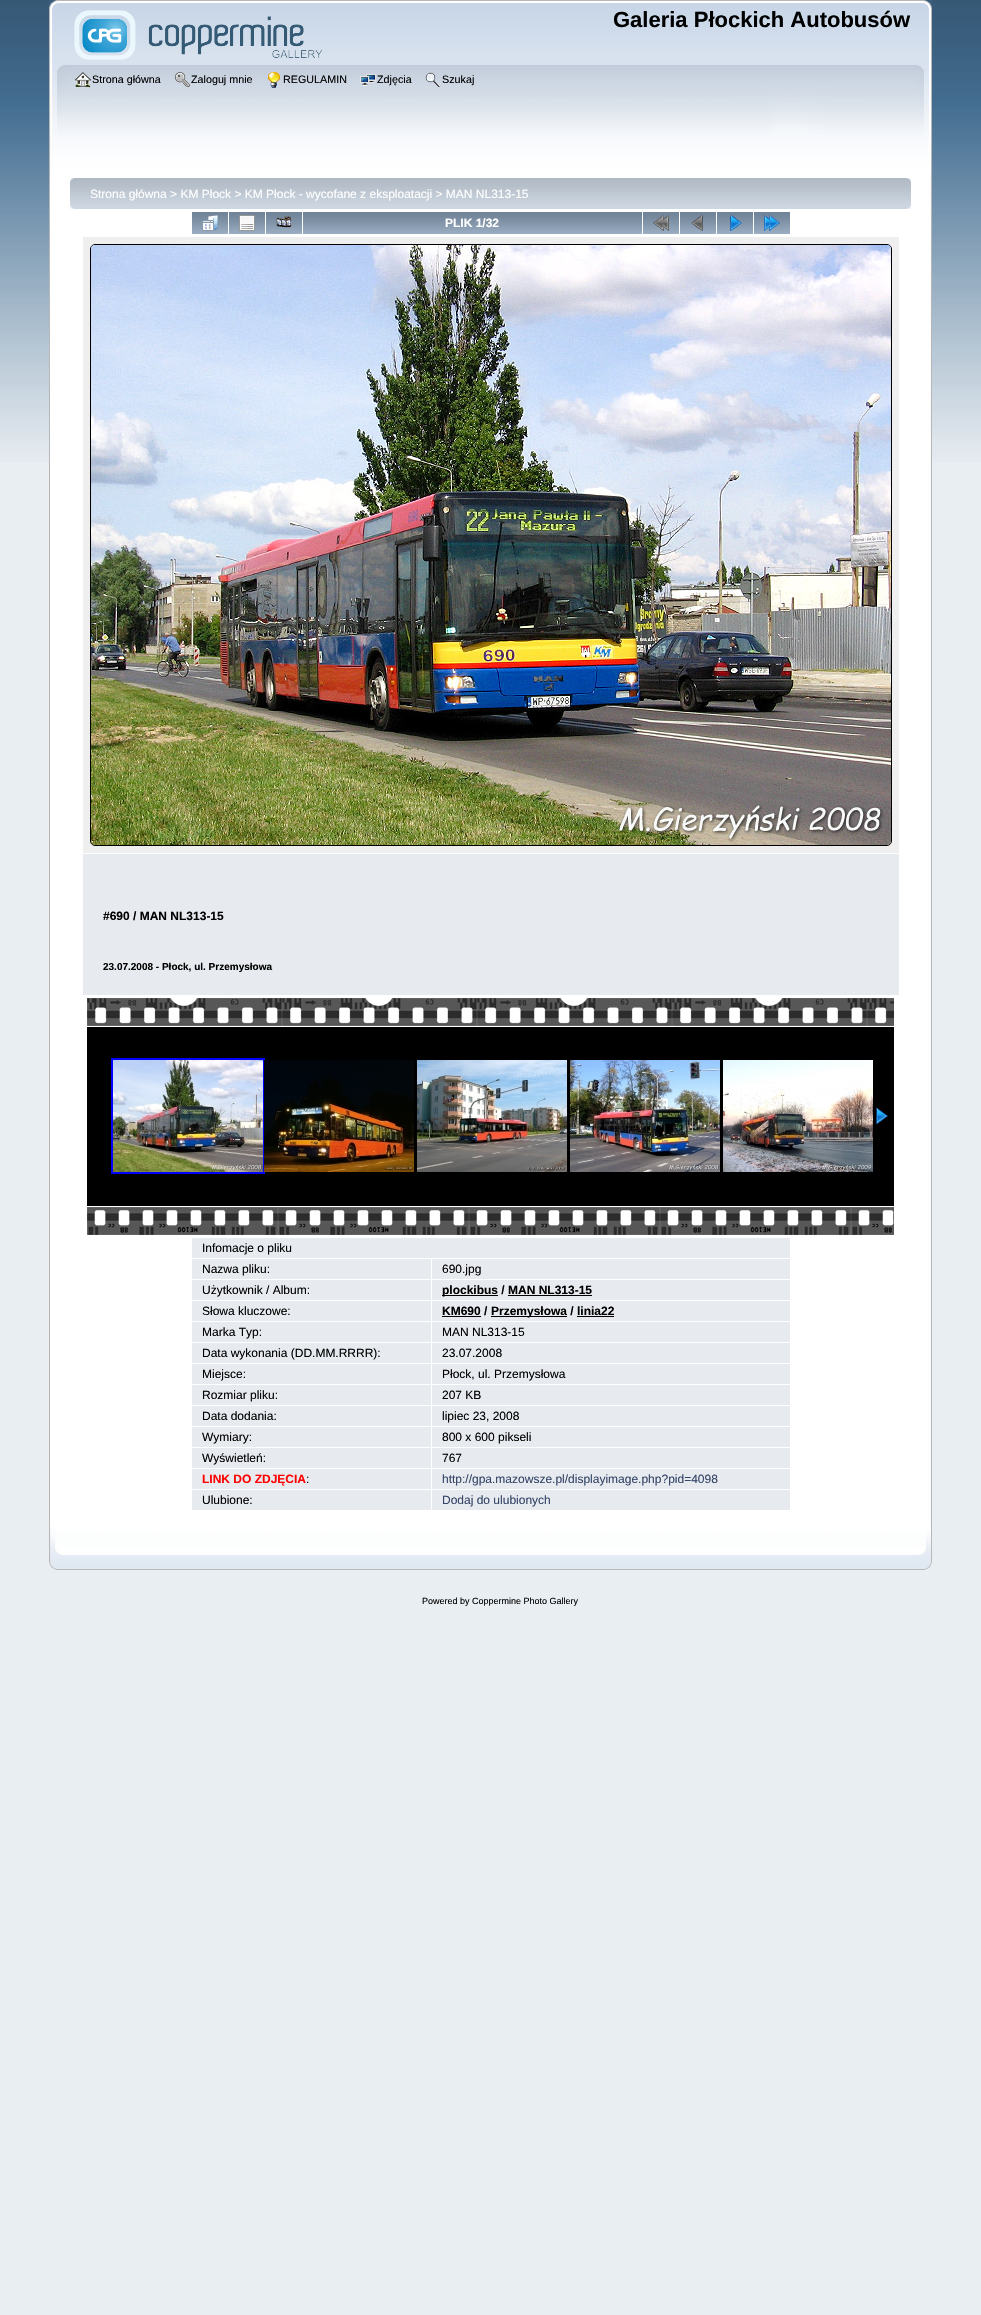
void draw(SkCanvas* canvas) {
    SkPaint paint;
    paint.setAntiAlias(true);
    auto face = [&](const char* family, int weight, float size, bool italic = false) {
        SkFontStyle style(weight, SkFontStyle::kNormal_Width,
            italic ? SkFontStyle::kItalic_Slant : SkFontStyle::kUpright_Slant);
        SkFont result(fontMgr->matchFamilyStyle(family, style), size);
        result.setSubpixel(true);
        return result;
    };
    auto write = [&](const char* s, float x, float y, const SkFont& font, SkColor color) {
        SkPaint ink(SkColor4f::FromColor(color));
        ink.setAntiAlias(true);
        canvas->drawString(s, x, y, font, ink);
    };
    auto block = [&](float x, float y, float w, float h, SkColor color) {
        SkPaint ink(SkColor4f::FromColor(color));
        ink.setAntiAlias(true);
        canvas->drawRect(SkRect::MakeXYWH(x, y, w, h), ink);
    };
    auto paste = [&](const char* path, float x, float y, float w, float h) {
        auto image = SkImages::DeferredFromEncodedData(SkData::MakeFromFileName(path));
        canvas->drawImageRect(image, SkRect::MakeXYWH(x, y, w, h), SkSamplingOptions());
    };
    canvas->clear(SkColorSetRGB(233, 238, 242));
    paste("pic1.png", 0, 0, 981, 462);
    paste("pic2.png", 49, 0, 875, 65);
    paste("pic3.png", 924, 0, 8, 65);
    paste("pic4.png", 74, 10, 248, 50);
    auto kFont1 = face("Liberation Sans", 700, 22);
    write("Galeria Płockich Autobusów", 613, 27, kFont1, SK_ColorBLACK);
    paste("pic5.png", 49, 65, 868, 110);
    paste("pic6.png", 917, 65, 15, 110);
    paste("pic7.png", 75, 72, 16, 16);
    auto kFont2 = face("Liberation Sans", 400, 10.75f);
    write("Strona główna", 92, 83, kFont2, SK_ColorBLACK);
    paste("pic8.png", 175, 72, 15, 15);
    write("Zaloguj mnie", 191, 83, kFont2, SK_ColorBLACK);
    paste("pic9.png", 268, 72, 12, 16);
    write("REGULAMIN", 283, 83, kFont2, SK_ColorBLACK);
    paste("pic10.png", 360, 74, 16, 12);
    write("Zdjęcia", 377, 83, kFont2, SK_ColorBLACK);
    paste("pic11.png", 425, 72, 16, 15);
    write("Szukaj", 442, 83, kFont2, SK_ColorBLACK);
    block(50, 175, 880, 1351, SK_ColorWHITE);
    block(49, 175, 1, 1351, SkColorSetRGB(183, 183, 183));
    paste("pic12.png", 930, 175, 2, 1351);
    paste("pic13.png", 70, 178, 836, 31);
    paste("pic14.png", 906, 178, 5, 31);
    auto kFont3 = face("Liberation Sans", 400, 12);
    write("Strona główna > KM Płock > KM Płock - wycofane z eksploatacji > MAN NL313-15", 90, 198, kFont3, SK_ColorWHITE);
    paste("pic15.png", 192, 212, 36, 22);
    paste("pic16.png", 202, 215, 16, 16);
    paste("pic15.png", 229, 212, 36, 22);
    paste("pic17.png", 239, 215, 16, 16);
    paste("pic15.png", 266, 212, 36, 22);
    paste("pic18.png", 276, 216, 16, 12);
    paste("pic19.png", 303, 212, 339, 22);
    auto kFont4 = face("Liberation Sans", 700, 12);
    write("PLIK 1/32", 445, 227, kFont4, SK_ColorWHITE);
    paste("pic15.png", 643, 212, 36, 22);
    paste("pic20.png", 653, 215, 16, 16);
    paste("pic15.png", 680, 212, 36, 22);
    paste("pic21.png", 691, 215, 12, 16);
    paste("pic15.png", 717, 212, 36, 22);
    paste("pic22.png", 730, 215, 12, 16);
    paste("pic15.png", 754, 212, 36, 22);
    paste("pic23.png", 764, 215, 16, 16);
    block(83, 237, 816, 616, SkColorSetRGB(239, 239, 239));
    paint.setStyle(SkPaint::kStroke_Style);
    paint.setStrokeWidth(1);
    paint.setColor(SK_ColorBLACK);
    canvas->drawRoundRect(SkRect::MakeXYWH(90.5f, 244.5f, 801, 601), 4.5f, 4.5f, paint);
    paste("pic24.png", 91, 245, 800, 600);
    block(83, 854, 816, 141, SkColorSetRGB(231, 234, 239));
    write("#690 / MAN NL313-15", 103, 920, kFont4, SK_ColorBLACK);
    auto kFont5 = face("Liberation Sans", 700, 10);
    write("23.07.2008 - Płock, ul. Przemysłowa", 103, 970, kFont5, SK_ColorBLACK);
    paste("pic25.png", 87, 998, 807, 28);
    block(87, 1027, 807, 179, SK_ColorBLACK);
    paint.setStrokeWidth(2);
    paint.setColor(SkColorSetRGB(0, 0, 255));
    canvas->drawRect(SkRect::MakeXYWH(112, 1059, 152, 114), paint);
    paste("pic26.png", 113, 1060, 150, 112);
    paste("pic27.png", 264, 1060, 150, 112);
    paste("pic28.png", 417, 1060, 150, 112);
    paste("pic29.png", 570, 1060, 150, 112);
    paste("pic30.png", 723, 1060, 150, 112);
    paste("pic31.png", 876, 1108, 12, 16);
    paste("pic32.png", 87, 1207, 807, 28);
    block(192, 1238, 598, 20, SkColorSetRGB(231, 234, 239));
    write("Infomacje o pliku", 202, 1252, kFont3, SK_ColorBLACK);
    block(192, 1259, 239, 20, SkColorSetRGB(231, 234, 239));
    write("Nazwa pliku:", 202, 1273, kFont3, SK_ColorBLACK);
    block(432, 1259, 358, 20, SkColorSetRGB(231, 234, 239));
    write("690.jpg", 442, 1273, kFont3, SK_ColorBLACK);
    block(192, 1280, 239, 20, SkColorSetRGB(231, 234, 239));
    write("Użytkownik / Album:", 202, 1294, kFont3, SK_ColorBLACK);
    block(432, 1280, 358, 20, SkColorSetRGB(231, 234, 239));
    block(442, 1295, 56, 1, SK_ColorBLACK);
    write("plockibus / MAN NL313-15", 442, 1294, kFont4, SK_ColorBLACK);
    block(508, 1295, 84, 1, SK_ColorBLACK);
    block(192, 1301, 239, 20, SkColorSetRGB(231, 234, 239));
    write("Słowa kluczowe:", 202, 1315, kFont3, SK_ColorBLACK);
    block(432, 1301, 358, 20, SkColorSetRGB(231, 234, 239));
    write("KM690 /", 442, 1315, kFont4, SK_ColorBLACK);
    block(442, 1316, 39, 1, SK_ColorBLACK);
    block(491, 1316, 76, 1, SK_ColorBLACK);
    write("Przemysłowa / linia22", 491, 1315, kFont4, SK_ColorBLACK);
    block(577, 1316, 37, 1, SK_ColorBLACK);
    block(192, 1322, 239, 20, SkColorSetRGB(231, 234, 239));
    write("Marka Typ:", 202, 1336, kFont3, SK_ColorBLACK);
    block(432, 1322, 358, 20, SkColorSetRGB(231, 234, 239));
    write("MAN NL313-15", 442, 1336, kFont3, SK_ColorBLACK);
    block(192, 1343, 239, 20, SkColorSetRGB(231, 234, 239));
    write("Data wykonania (DD.MM.RRRR):", 202, 1357, kFont3, SK_ColorBLACK);
    block(432, 1343, 358, 20, SkColorSetRGB(231, 234, 239));
    write("23.07.2008", 442, 1357, kFont3, SK_ColorBLACK);
    block(192, 1364, 239, 20, SkColorSetRGB(231, 234, 239));
    write("Miejsce:", 202, 1378, kFont3, SK_ColorBLACK);
    block(432, 1364, 358, 20, SkColorSetRGB(231, 234, 239));
    write("Płock, ul. Przemysłowa", 442, 1378, kFont3, SK_ColorBLACK);
    block(192, 1385, 239, 20, SkColorSetRGB(231, 234, 239));
    write("Rozmiar pliku:", 202, 1399, kFont3, SK_ColorBLACK);
    block(432, 1385, 358, 20, SkColorSetRGB(231, 234, 239));
    write("207 KB", 442, 1399, kFont3, SK_ColorBLACK);
    block(192, 1406, 239, 20, SkColorSetRGB(231, 234, 239));
    write("Data dodania:", 202, 1420, kFont3, SK_ColorBLACK);
    block(432, 1406, 358, 20, SkColorSetRGB(231, 234, 239));
    write("lipiec 23, 2008", 442, 1420, kFont3, SK_ColorBLACK);
    block(192, 1427, 239, 20, SkColorSetRGB(231, 234, 239));
    write("Wymiary:", 202, 1441, kFont3, SK_ColorBLACK);
    block(432, 1427, 358, 20, SkColorSetRGB(231, 234, 239));
    write("800 x 600 pikseli", 442, 1441, kFont3, SK_ColorBLACK);
    block(192, 1448, 239, 20, SkColorSetRGB(231, 234, 239));
    write("Wyświetleń:", 202, 1462, kFont3, SK_ColorBLACK);
    block(432, 1448, 358, 20, SkColorSetRGB(231, 234, 239));
    write("767", 442, 1462, kFont3, SK_ColorBLACK);
    block(192, 1469, 239, 20, SkColorSetRGB(231, 234, 239));
    write("LINK DO ZDJĘCIA", 202, 1483, kFont4, SkColorSetRGB(255, 0, 0));
    write(":", 306, 1483, kFont3, SK_ColorBLACK);
    block(432, 1469, 358, 20, SkColorSetRGB(231, 234, 239));
    write("http://gpa.mazowsze.pl/displayimage.php?pid=4098", 442, 1483, kFont3, SkColorSetRGB(51, 68, 102));
    block(192, 1490, 239, 20, SkColorSetRGB(231, 234, 239));
    write("Ulubione:", 202, 1504, kFont3, SK_ColorBLACK);
    block(432, 1490, 358, 20, SkColorSetRGB(231, 234, 239));
    write("Dodaj do ulubionych", 442, 1504, kFont3, SkColorSetRGB(51, 68, 102));
    paste("pic33.png", 49, 1526, 870, 44);
    paste("pic34.png", 919, 1526, 13, 44);
    auto kFont6 = face("Liberation Sans", 400, 9);
    write("Powered by Coppermine Photo Gallery", 422, 1604, kFont6, SK_ColorBLACK);
}
